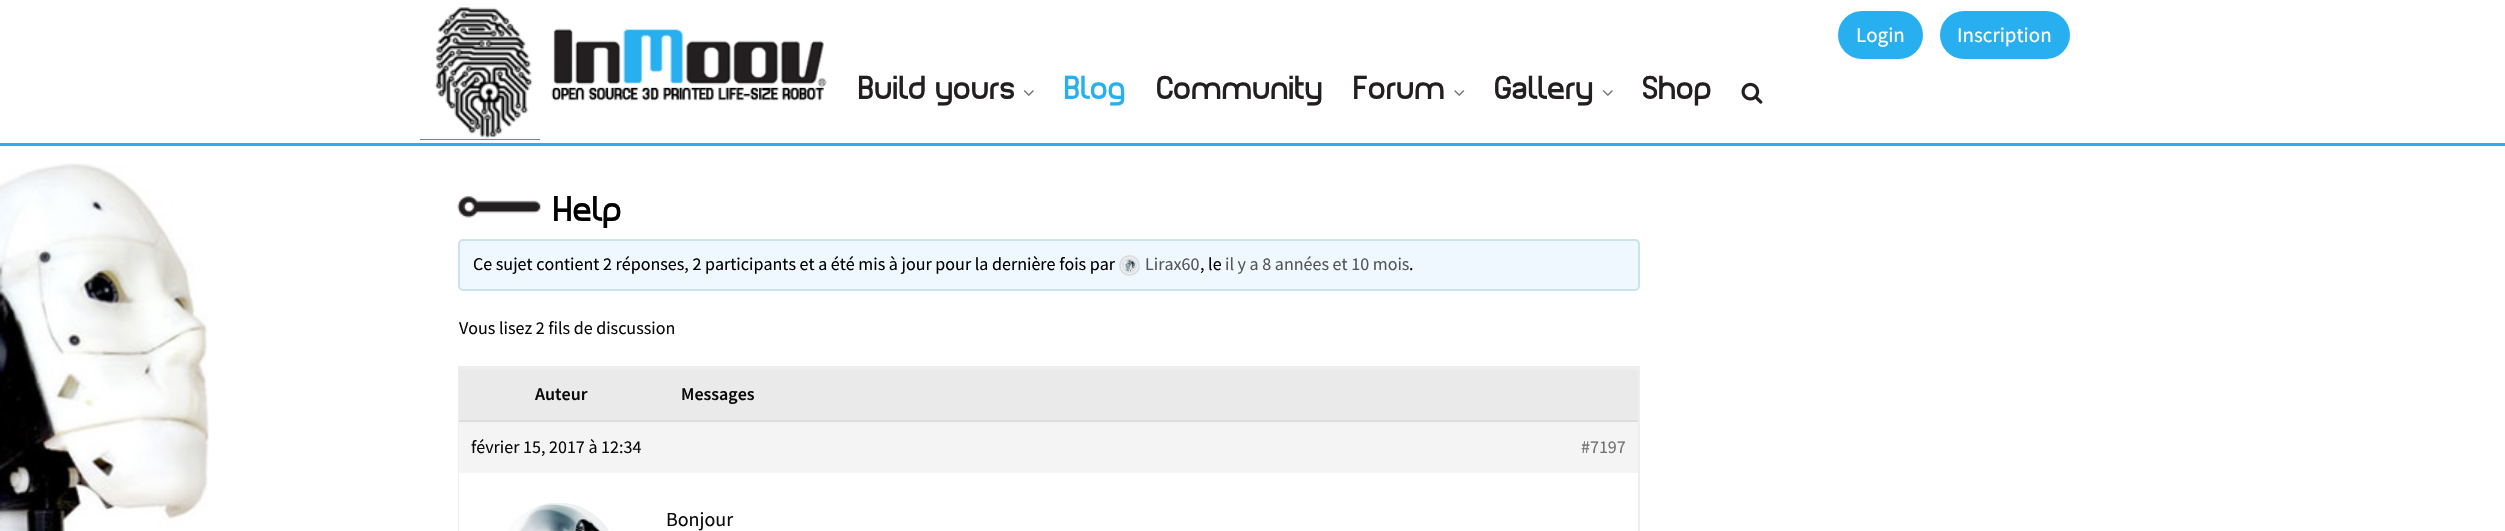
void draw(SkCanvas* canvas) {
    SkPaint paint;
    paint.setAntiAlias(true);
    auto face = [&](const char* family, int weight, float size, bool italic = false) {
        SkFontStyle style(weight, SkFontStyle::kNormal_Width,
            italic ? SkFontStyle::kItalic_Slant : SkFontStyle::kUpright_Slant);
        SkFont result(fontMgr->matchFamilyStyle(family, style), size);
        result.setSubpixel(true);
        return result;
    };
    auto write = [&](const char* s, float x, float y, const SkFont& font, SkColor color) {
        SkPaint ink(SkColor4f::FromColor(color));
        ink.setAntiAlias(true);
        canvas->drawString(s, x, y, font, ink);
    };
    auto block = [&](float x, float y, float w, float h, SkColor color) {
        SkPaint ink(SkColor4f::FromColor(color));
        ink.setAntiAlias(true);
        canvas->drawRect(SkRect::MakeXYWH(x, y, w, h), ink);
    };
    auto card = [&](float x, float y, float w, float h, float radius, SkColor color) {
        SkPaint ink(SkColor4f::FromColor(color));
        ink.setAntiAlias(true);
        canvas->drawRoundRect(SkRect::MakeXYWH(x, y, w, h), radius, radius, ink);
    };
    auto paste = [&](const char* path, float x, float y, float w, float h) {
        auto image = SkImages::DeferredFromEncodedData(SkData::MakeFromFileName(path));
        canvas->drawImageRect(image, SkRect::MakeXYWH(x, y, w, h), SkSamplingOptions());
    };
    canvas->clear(SK_ColorWHITE);
    paste("pic1.png", 0, 163, 209, 368);
    block(0, 143, 2505, 3, SkColorSetRGB(40, 175, 239));
    block(420, 7, 120, 133, SK_ColorBLACK);
    paste("pic2.png", 420, 3, 120, 137);
    paste("pic3.png", 551, 28, 276, 73);
    card(1838, 11, 85, 48, 24, SkColorSetRGB(40, 175, 239));
    auto kFont1 = face("Source Sans Pro", 400, 21);
    write("Login", 1856, 42, kFont1, SK_ColorWHITE);
    card(1940, 11, 130, 48, 24, SkColorSetRGB(40, 175, 239));
    write("Inscription", 1957, 42, kFont1, SK_ColorWHITE);
    auto kFont2 = face("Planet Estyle", 400, 31.5f);
    write("Build yours", 859, 99, kFont2, SkColorSetRGB(35, 31, 32));
    paste("pic4.png", 1023, 90, 11, 6);
    write("Blog", 1065, 99, kFont2, SkColorSetRGB(40, 175, 239));
    write("Community", 1157, 99, kFont2, SkColorSetRGB(35, 31, 32));
    write("Forum", 1354, 99, kFont2, SkColorSetRGB(35, 31, 32));
    paste("pic5.png", 1454, 90, 11, 6);
    write("Gallery", 1495, 99, kFont2, SkColorSetRGB(35, 31, 32));
    paste("pic4.png", 1602, 90, 11, 6);
    write("Shop", 1643, 99, kFont2, SkColorSetRGB(35, 31, 32));
    paste("pic6.png", 1741, 82, 22, 22);
    paste("pic7.png", 457, 196, 84, 22);
    auto kFont3 = face("Planet Estyle", 400, 34);
    write("Help", 554, 221, kFont3, SK_ColorBLACK);
    paint.setColor(SkColorSetRGB(240, 248, 255));
    canvas->drawRoundRect(SkRect::MakeXYWH(459, 240, 1180, 50), 4, 4, paint);
    paint.setStyle(SkPaint::kStroke_Style);
    paint.setStrokeWidth(2);
    paint.setColor(SkColorSetRGB(206, 225, 239));
    canvas->drawRoundRect(SkRect::MakeXYWH(459, 240, 1180, 50), 4, 4, paint);
    auto kFont4 = face("Source Sans Pro", 400, 18);
    write("Ce sujet contient 2 réponses, 2 participants et a été mis à jour pour la dernière fois par", 473, 270, kFont4, SK_ColorBLACK);
    paint.setColor(SkColorSetRGB(221, 221, 221));
    canvas->drawCircle(1129.5f, 265.5f, 9.5f, paint);
    canvas->drawCircle(1129.5f, 265.5f, 6.5f, paint);
    paste("pic8.png", 1123, 259, 13, 13);
    write("Lirax60", 1145, 270, kFont4, SkColorSetRGB(85, 85, 85));
    write(", le", 1200, 270, kFont4, SK_ColorBLACK);
    write("il y a 8 années et 10 mois", 1225, 270, kFont4, SkColorSetRGB(85, 85, 85));
    write(".", 1409, 270, kFont4, SK_ColorBLACK);
    write("Vous lisez 2 fils de discussion", 459, 334, kFont4, SkColorSetRGB(10, 10, 10));
    paint.setColor(SkColorSetRGB(238, 238, 238));
    canvas->drawRect(SkRect::MakeXYWH(459, 367, 1180, 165), paint);
    block(459, 370, 1179, 50, SkColorSetRGB(234, 234, 234));
    block(459, 368, 1179, 2, SkColorSetRGB(238, 238, 238));
    auto kFont5 = face("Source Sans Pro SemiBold", 600, 18);
    write("Auteur", 535, 400, kFont5, SkColorSetRGB(10, 10, 10));
    write("Messages", 681, 400, kFont5, SkColorSetRGB(10, 10, 10));
    block(459, 422, 1179, 51, SkColorSetRGB(244, 244, 244));
    block(459, 420, 1179, 2, SkColorSetRGB(221, 221, 221));
    write("février 15, 2017 à 12:34", 471, 453, kFont4, SkColorSetRGB(10, 10, 10));
    write("#7197", 1581, 453, kFont4, SkColorSetRGB(112, 112, 112));
    block(459, 473, 1, 58, SK_ColorWHITE);
    paste("pic9.png", 509, 503, 100, 28);
    auto kFont6 = face("Source Sans Pro", 400, 20);
    write("Bonjour", 666, 526, kFont6, SkColorSetRGB(10, 10, 10));
}
